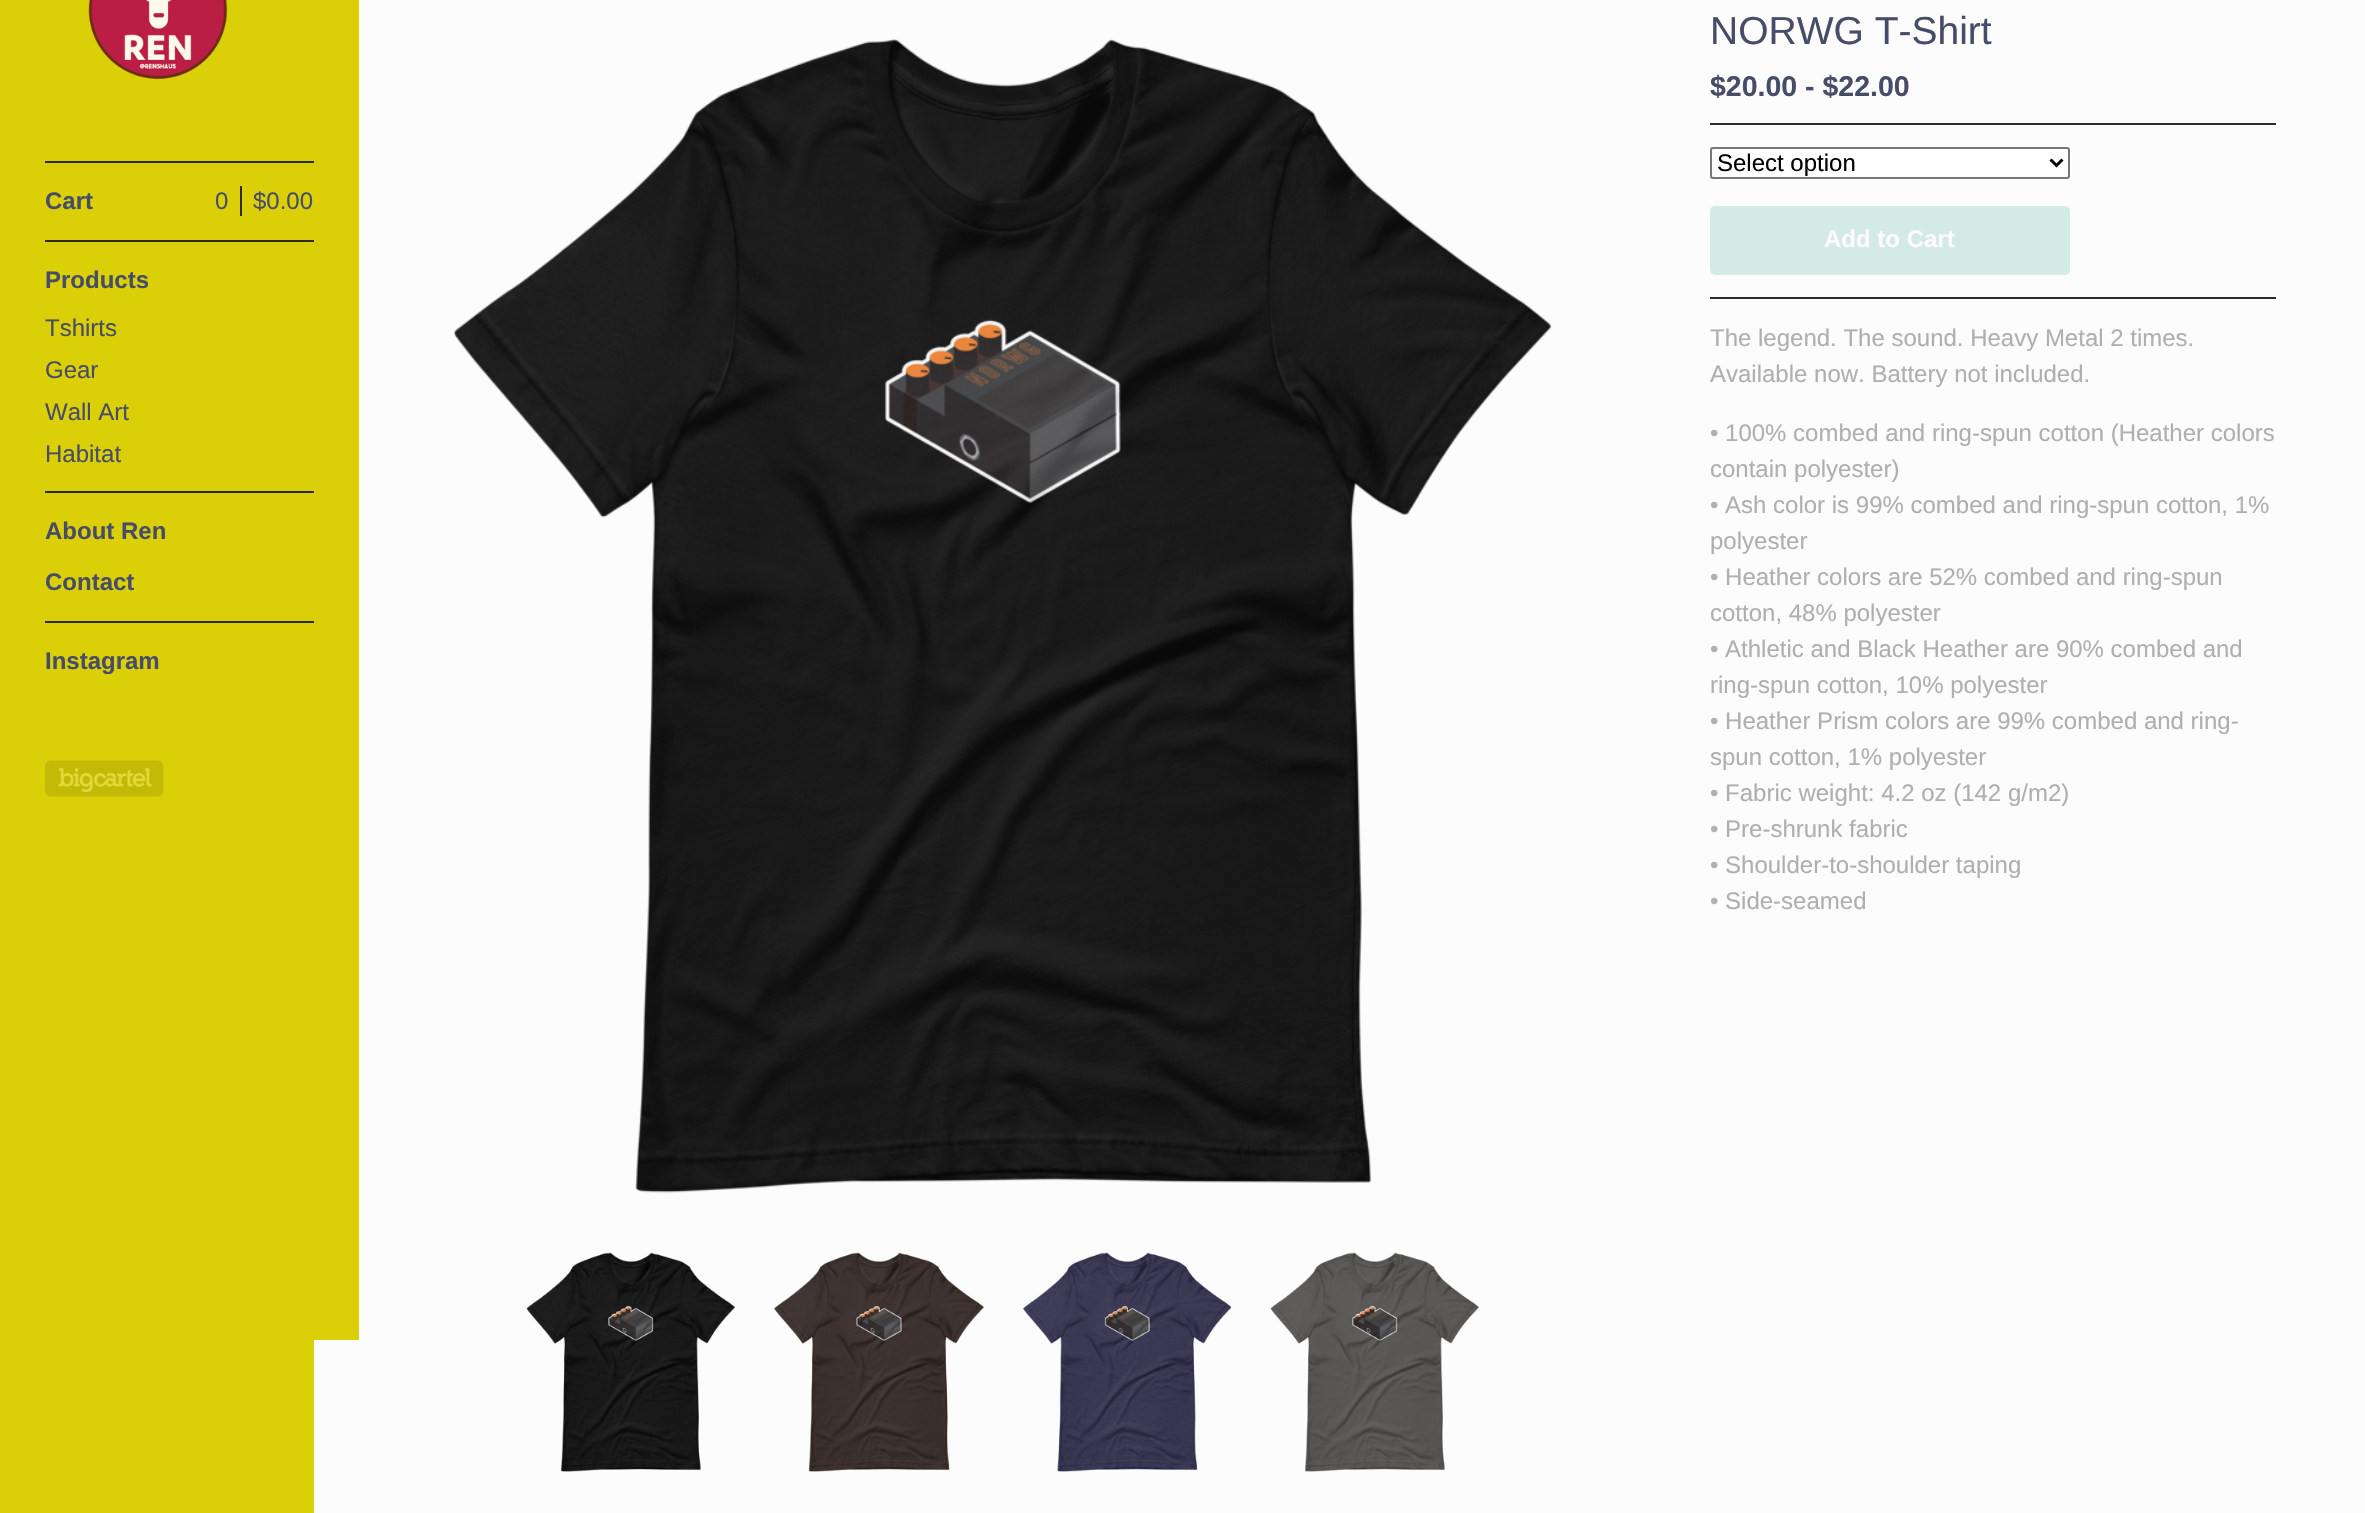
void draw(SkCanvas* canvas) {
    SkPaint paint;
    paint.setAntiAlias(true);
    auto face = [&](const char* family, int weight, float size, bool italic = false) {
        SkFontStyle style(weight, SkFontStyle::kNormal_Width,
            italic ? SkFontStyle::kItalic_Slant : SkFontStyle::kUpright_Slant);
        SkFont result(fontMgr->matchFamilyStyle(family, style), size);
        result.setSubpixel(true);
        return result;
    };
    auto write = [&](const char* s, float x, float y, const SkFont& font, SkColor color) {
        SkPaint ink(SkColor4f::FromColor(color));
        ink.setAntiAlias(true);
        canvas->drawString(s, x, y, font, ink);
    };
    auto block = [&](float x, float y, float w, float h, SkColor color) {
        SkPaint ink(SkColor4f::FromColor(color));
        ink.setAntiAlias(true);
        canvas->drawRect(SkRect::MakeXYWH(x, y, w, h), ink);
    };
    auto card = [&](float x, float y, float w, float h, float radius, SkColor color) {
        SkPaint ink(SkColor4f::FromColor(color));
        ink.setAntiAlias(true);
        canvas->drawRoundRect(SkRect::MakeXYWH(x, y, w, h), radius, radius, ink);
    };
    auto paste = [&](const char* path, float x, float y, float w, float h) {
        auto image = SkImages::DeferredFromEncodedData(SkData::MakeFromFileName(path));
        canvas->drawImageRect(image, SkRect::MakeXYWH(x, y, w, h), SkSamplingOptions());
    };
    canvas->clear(SkColorSetRGB(252, 252, 252));
    block(0, 0, 359, 1340, SkColorSetRGB(219, 208, 7));
    paste("pic1.png", 88, 0, 140, 80);
    block(45, 161, 269, 2, SkColorSetRGB(43, 43, 43));
    auto kFont1 = face("Liberation Sans", 700, 24);
    write("Cart", 45, 209, kFont1, SkColorSetRGB(71, 76, 105));
    auto kFont2 = face("Liberation Sans", 400, 24);
    write("0", 215, 209, kFont2, SkColorSetRGB(71, 76, 105));
    block(240, 186, 2, 30, SkColorSetRGB(43, 43, 43));
    write("$0.00", 253, 209, kFont2, SkColorSetRGB(71, 76, 105));
    block(45, 240, 269, 2, SkColorSetRGB(43, 43, 43));
    write("Products", 45, 288, kFont1, SkColorSetRGB(71, 76, 105));
    write("Tshirts", 45, 336, kFont2, SkColorSetRGB(71, 76, 105));
    write("Gear", 45, 378, kFont2, SkColorSetRGB(71, 76, 105));
    write("Wall Art", 45, 420, kFont2, SkColorSetRGB(71, 76, 105));
    write("Habitat", 45, 462, kFont2, SkColorSetRGB(71, 76, 105));
    block(45, 491, 269, 2, SkColorSetRGB(43, 43, 43));
    write("About Ren", 45, 539, kFont1, SkColorSetRGB(71, 76, 105));
    write("Contact", 45, 590, kFont1, SkColorSetRGB(71, 76, 105));
    block(45, 621, 269, 2, SkColorSetRGB(43, 43, 43));
    write("Instagram", 45, 669, kFont1, SkColorSetRGB(71, 76, 105));
    paste("pic2.png", 45, 760, 119, 37);
    paste("pic3.png", 453, 39, 1099, 1154);
    paste("pic4.png", 526, 1252, 210, 220);
    paste("pic5.png", 774, 1252, 210, 220);
    paste("pic6.png", 1022, 1252, 210, 220);
    paste("pic7.png", 1270, 1252, 210, 220);
    auto kFont3 = face("Liberation Sans", 400, 39);
    write("NORWG T-Shirt", 1710, 44, kFont3, SkColorSetRGB(71, 76, 105));
    auto kFont4 = face("Liberation Sans", 700, 28.5f);
    write("$20.00 - $22.00", 1710, 96, kFont4, SkColorSetRGB(71, 76, 105));
    block(1710, 123, 566, 2, SkColorSetRGB(43, 43, 43));
    paint.setColor(SK_ColorWHITE);
    canvas->drawRoundRect(SkRect::MakeXYWH(1711, 148, 358, 30), 2, 2, paint);
    paint.setStyle(SkPaint::kStroke_Style);
    paint.setStrokeWidth(2);
    paint.setColor(SkColorSetRGB(118, 118, 118));
    canvas->drawRoundRect(SkRect::MakeXYWH(1711, 148, 358, 30), 2, 2, paint);
    paint.setStrokeWidth(3);
    paint.setColor(SK_ColorBLACK);
    canvas->drawPath(SkPathBuilder().moveTo(2050.5f, 159.5f).lineTo(2056.5f, 165.5f).lineTo(2062.5f, 159.5f).detach(), paint);
    write("Select option", 1717, 171, kFont2, SK_ColorBLACK);
    card(1710, 206, 360, 69, 5, SkColorSetRGB(212, 234, 229));
    write("Add to Cart", 1824, 247, kFont1, SkColorSetRGB(252, 252, 252));
    block(1710, 297, 566, 2, SkColorSetRGB(43, 43, 43));
    write("The legend. The sound. Heavy Metal 2 times.", 1710, 346, kFont2, SkColorSetRGB(175, 175, 175));
    write("Available now. Battery not included.", 1710, 382, kFont2, SkColorSetRGB(175, 175, 175));
    write("• 100% combed and ring-spun cotton (Heather colors", 1710, 441, kFont2, SkColorSetRGB(175, 175, 175));
    write("contain polyester)", 1710, 477, kFont2, SkColorSetRGB(175, 175, 175));
    write("• Ash color is 99% combed and ring-spun cotton, 1%", 1710, 513, kFont2, SkColorSetRGB(175, 175, 175));
    write("polyester", 1710, 549, kFont2, SkColorSetRGB(175, 175, 175));
    write("• Heather colors are 52% combed and ring-spun", 1710, 585, kFont2, SkColorSetRGB(175, 175, 175));
    write("cotton, 48% polyester", 1710, 621, kFont2, SkColorSetRGB(175, 175, 175));
    write("• Athletic and Black Heather are 90% combed and", 1710, 657, kFont2, SkColorSetRGB(175, 175, 175));
    write("ring-spun cotton, 10% polyester", 1710, 693, kFont2, SkColorSetRGB(175, 175, 175));
    write("• Heather Prism colors are 99% combed and ring-", 1710, 729, kFont2, SkColorSetRGB(175, 175, 175));
    write("spun cotton, 1% polyester", 1710, 765, kFont2, SkColorSetRGB(175, 175, 175));
    write("• Fabric weight: 4.2 oz (142 g/m2)", 1710, 801, kFont2, SkColorSetRGB(175, 175, 175));
    write("• Pre-shrunk fabric", 1710, 837, kFont2, SkColorSetRGB(175, 175, 175));
    write("• Shoulder-to-shoulder taping", 1710, 873, kFont2, SkColorSetRGB(175, 175, 175));
    write("• Side-seamed", 1710, 909, kFont2, SkColorSetRGB(175, 175, 175));
    block(0, 1340, 314, 173, SkColorSetRGB(219, 208, 7));
}
